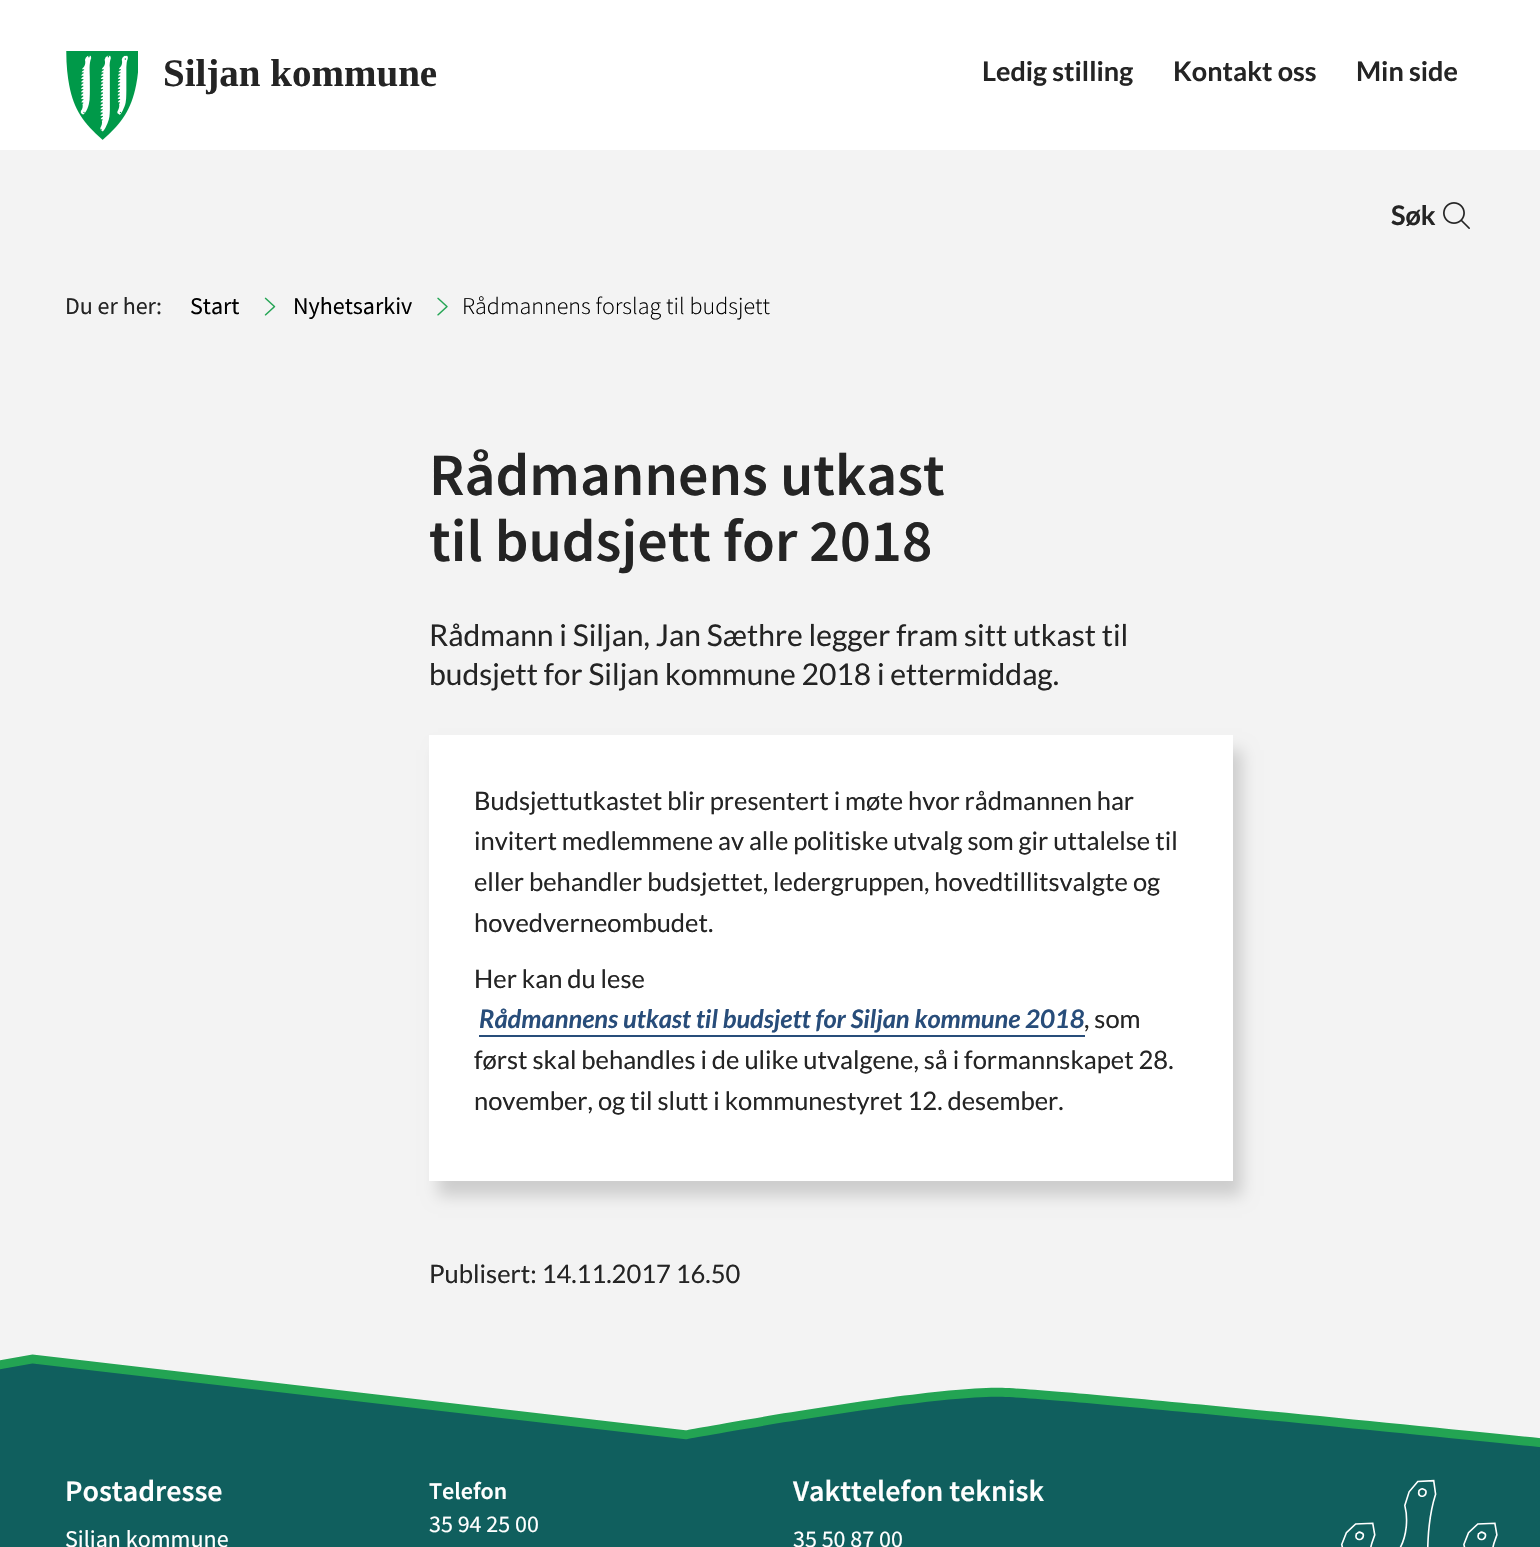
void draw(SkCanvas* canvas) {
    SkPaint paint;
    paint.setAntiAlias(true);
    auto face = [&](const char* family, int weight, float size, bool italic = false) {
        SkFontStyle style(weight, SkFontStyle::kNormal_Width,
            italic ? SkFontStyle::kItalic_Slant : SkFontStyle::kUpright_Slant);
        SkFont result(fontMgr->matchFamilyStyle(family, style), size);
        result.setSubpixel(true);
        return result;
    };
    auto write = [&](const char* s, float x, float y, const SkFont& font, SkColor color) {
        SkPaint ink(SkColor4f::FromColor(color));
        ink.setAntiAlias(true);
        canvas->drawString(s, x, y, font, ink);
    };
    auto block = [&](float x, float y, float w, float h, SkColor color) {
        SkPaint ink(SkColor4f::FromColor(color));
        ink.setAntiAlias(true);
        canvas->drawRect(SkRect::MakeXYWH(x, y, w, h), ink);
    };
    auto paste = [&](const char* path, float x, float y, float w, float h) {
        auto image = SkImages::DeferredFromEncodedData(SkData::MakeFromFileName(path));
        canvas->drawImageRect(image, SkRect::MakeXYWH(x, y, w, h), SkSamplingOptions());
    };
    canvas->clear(SkColorSetRGB(243, 243, 243));
    block(0, 0, 1540, 150, SK_ColorWHITE);
    paste("pic1.png", 66, 51, 72, 89);
    auto kFont1 = face("Liberation Serif", 700, 39);
    write("Siljan kommune", 163, 86, kFont1, SkColorSetRGB(36, 36, 36));
    auto kFont2 = face("Lato", 700, 27);
    write("Ledig stilling", 982, 81, kFont2, SkColorSetRGB(36, 36, 36));
    write("Kontakt oss", 1173, 81, kFont2, SkColorSetRGB(36, 36, 36));
    write("Min side", 1356, 81, kFont2, SkColorSetRGB(36, 36, 36));
    write("Søk", 1391, 225, kFont2, SkColorSetRGB(36, 36, 36));
    paste("pic2.png", 1443, 202, 27, 27);
    auto kFont3 = face("Source Sans Pro", 400, 24);
    write("Du er her:", 65, 314, kFont3, SkColorSetRGB(36, 36, 36));
    write("Start", 190, 314, kFont3, SK_ColorBLACK);
    paste("pic3.png", 264, 297, 12, 19);
    write("Nyhetsarkiv", 293, 314, kFont3, SK_ColorBLACK);
    paste("pic4.png", 437, 297, 11, 19);
    auto kFont4 = face("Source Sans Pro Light", 300, 24);
    write("Rådmannens forslag til budsjett", 462, 314, kFont4, SK_ColorBLACK);
    auto kFont5 = face("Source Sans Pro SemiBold", 600, 60);
    write("Rådmannens utkast", 429, 495, kFont5, SkColorSetRGB(36, 36, 36));
    write("til budsjett for 2018", 429, 561, kFont5, SkColorSetRGB(36, 36, 36));
    auto kFont6 = face("Lato", 400, 30);
    write("Rådmann i Siljan, Jan Sæthre legger fram sitt utkast til", 429, 646, kFont6, SkColorSetRGB(36, 36, 36));
    write("budsjett for Siljan kommune 2018 i ettermiddag.", 429, 685, kFont6, SkColorSetRGB(36, 36, 36));
    paint.setColor(SkColorSetRGB(205, 205, 205));
    paint.setMaskFilter(SkMaskFilter::MakeBlur(kNormal_SkBlurStyle, 7.5f));
    canvas->drawRect(SkRect::MakeXYWH(438, 750, 804, 446), paint);
    paint.setMaskFilter(nullptr);
    block(429, 735, 804, 446, SK_ColorWHITE);
    auto kFont7 = face("Lato", 400, 25.5f);
    write("Budsjettutkastet blir presentert i møte hvor rådmannen har", 474, 810, kFont7, SkColorSetRGB(36, 36, 36));
    write("invitert medlemmene av alle politiske utvalg som gir uttalelse til", 474, 850, kFont7, SkColorSetRGB(36, 36, 36));
    write("eller behandler budsjettet, ledergruppen, hovedtillitsvalgte og", 474, 891, kFont7, SkColorSetRGB(36, 36, 36));
    write("hovedverneombudet.", 474, 932, kFont7, SkColorSetRGB(36, 36, 36));
    write("Her kan du lese", 474, 988, kFont7, SkColorSetRGB(36, 36, 36));
    auto kFont8 = face("Lato", 700, 25.5f, true);
    write("Rådmannens utkast til budsjett for Siljan kommune 2018", 479, 1028, kFont8, SkColorSetRGB(40, 77, 122));
    block(479, 1035, 606, 2, SkColorSetRGB(40, 77, 122));
    write(", som", 1084, 1028, kFont7, SkColorSetRGB(36, 36, 36));
    write("først skal behandles i de ulike utvalgene, så i formannskapet 28.", 474, 1069, kFont7, SkColorSetRGB(36, 36, 36));
    write("november, og til slutt i kommunestyret 12. desember.", 474, 1110, kFont7, SkColorSetRGB(36, 36, 36));
    write("Publisert: 14.11.2017 16.50", 429, 1283, kFont7, SkColorSetRGB(36, 36, 36));
    block(0, 1473, 1540, 74, SkColorSetRGB(16, 95, 94));
    paste("pic5.png", 0, 1354, 1540, 119);
    auto kFont9 = face("Source Sans Pro SemiBold", 600, 30);
    write("Postadresse", 65, 1501, kFont9, SK_ColorWHITE);
    write("Siljan kommune", 65, 1547, kFont3, SK_ColorWHITE);
    auto kFont10 = face("Source Sans Pro SemiBold", 600, 24);
    write("Telefon", 429, 1499, kFont10, SK_ColorWHITE);
    write("35 94 25 00", 429, 1532, kFont3, SK_ColorWHITE);
    write("Vakttelefon teknisk", 793, 1501, kFont9, SK_ColorWHITE);
    write("35 50 87 00", 793, 1547, kFont3, SK_ColorWHITE);
    paste("pic6.png", 1340, 1479, 158, 68);
}
